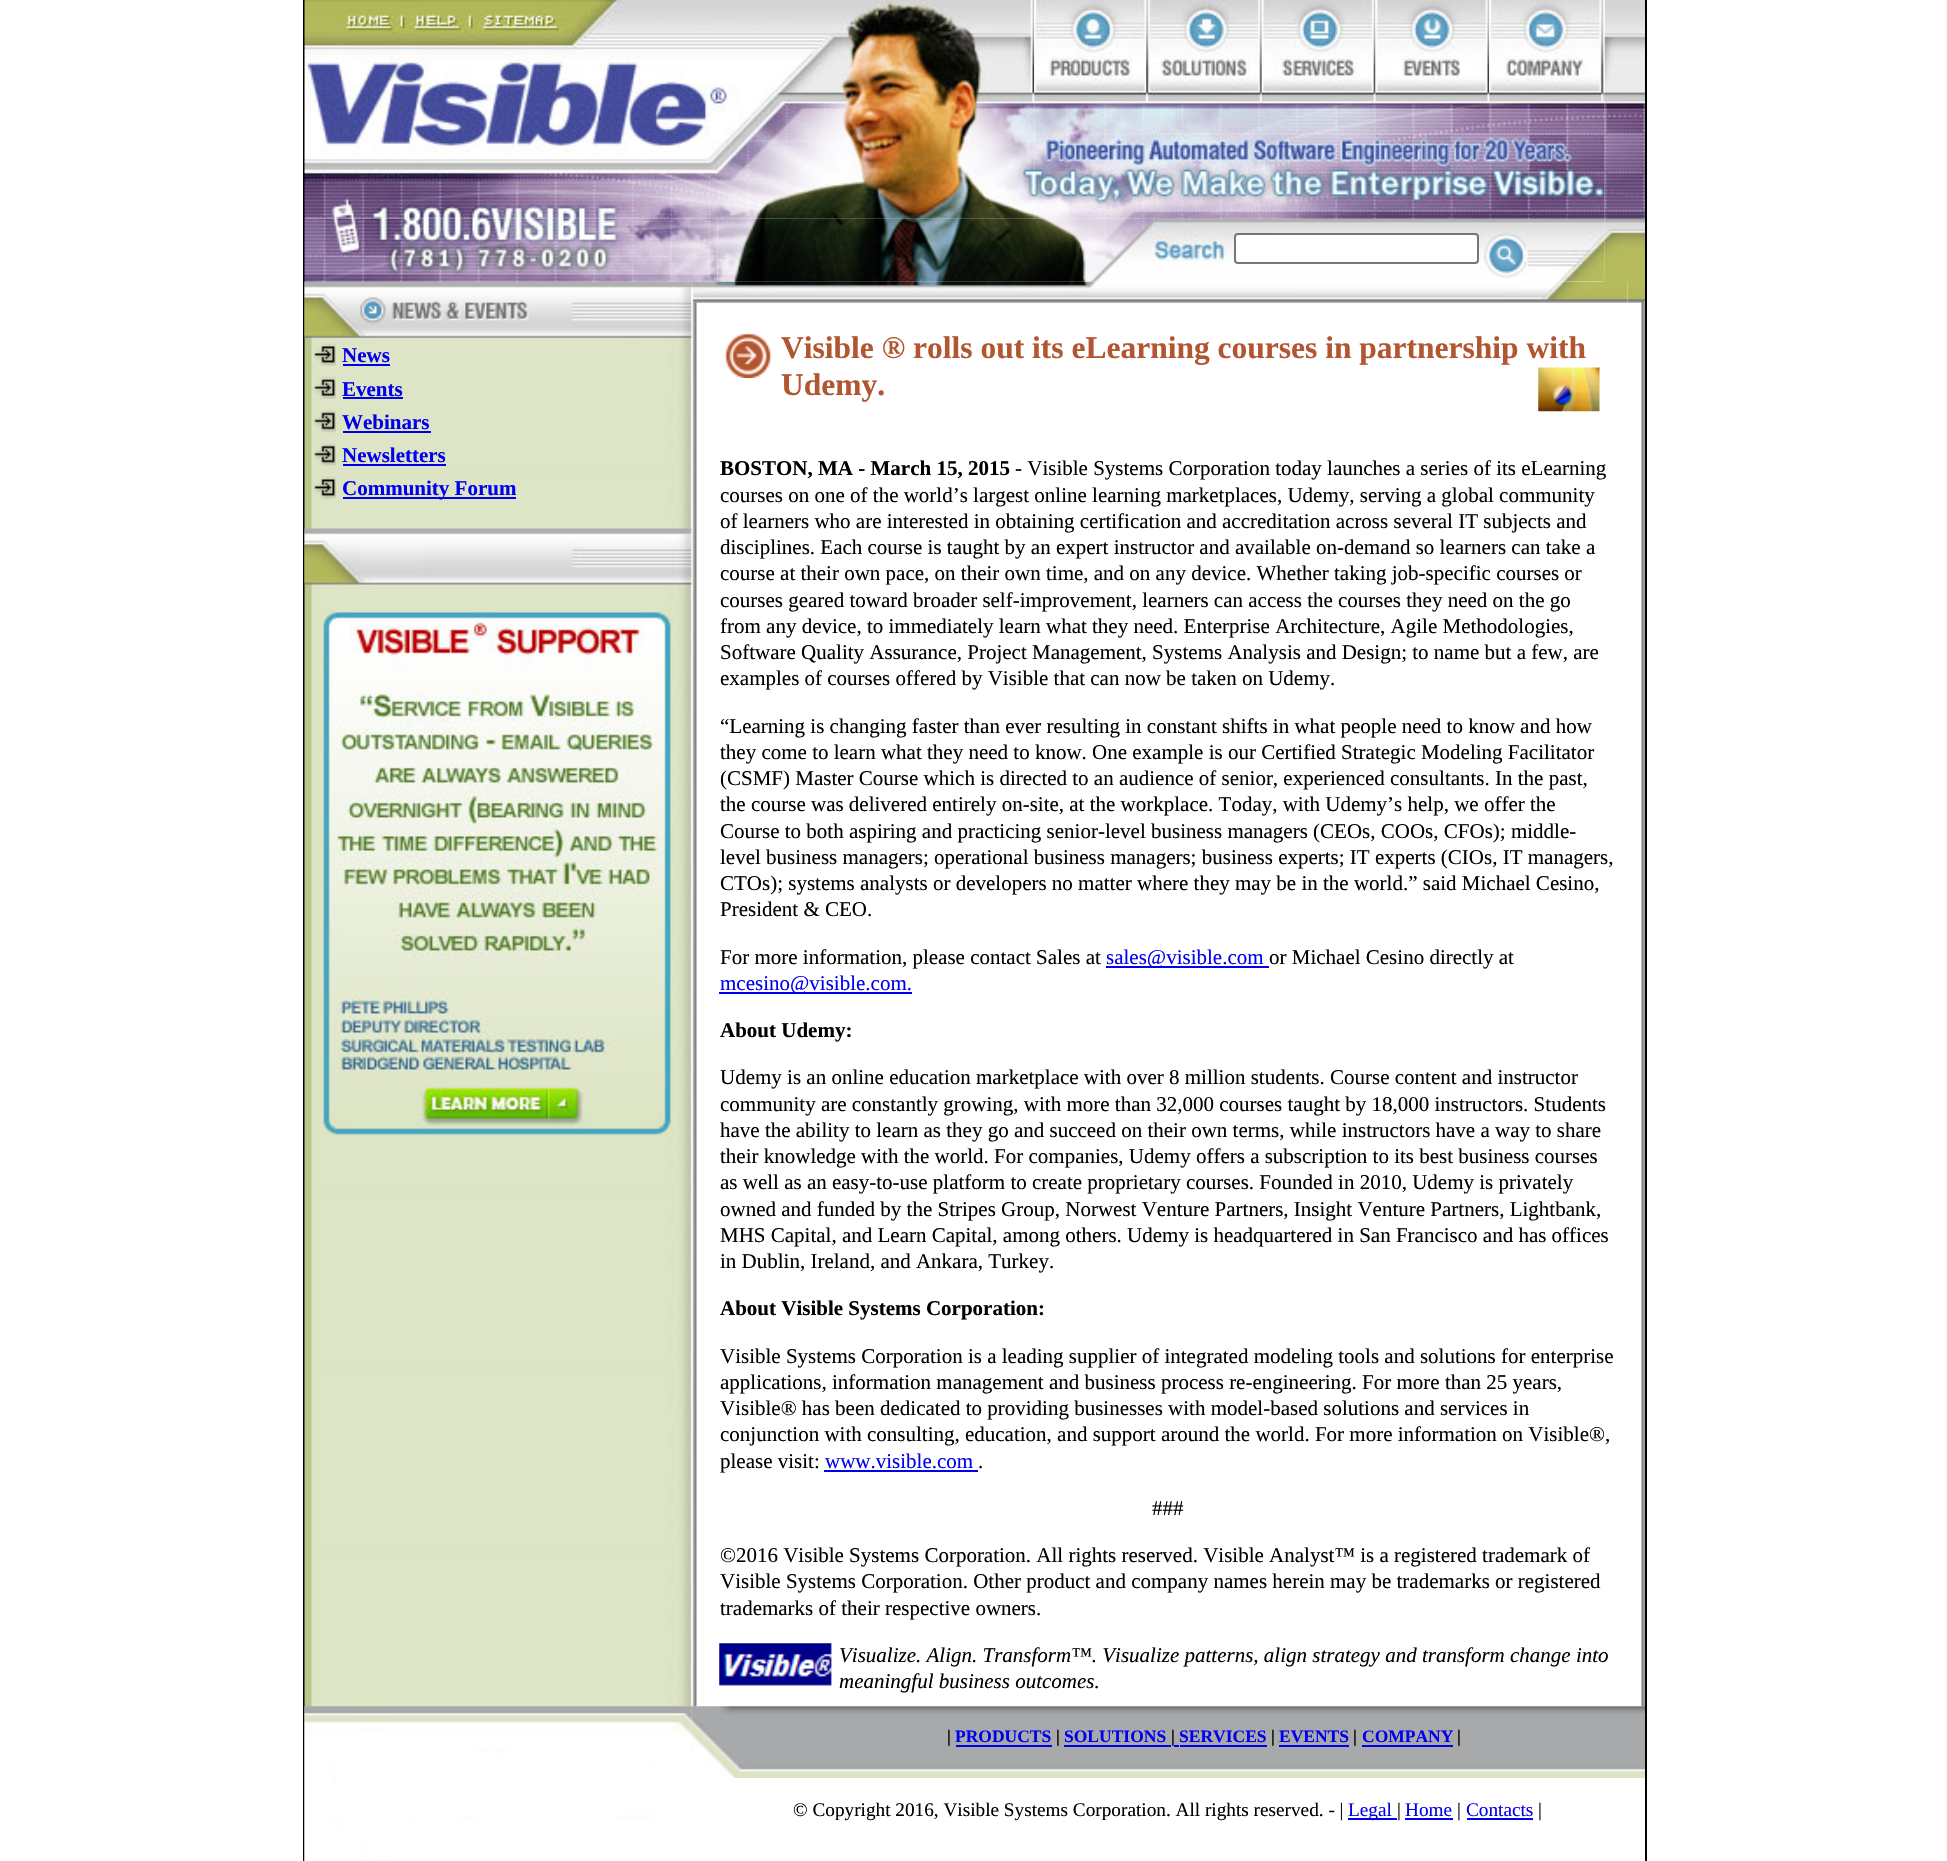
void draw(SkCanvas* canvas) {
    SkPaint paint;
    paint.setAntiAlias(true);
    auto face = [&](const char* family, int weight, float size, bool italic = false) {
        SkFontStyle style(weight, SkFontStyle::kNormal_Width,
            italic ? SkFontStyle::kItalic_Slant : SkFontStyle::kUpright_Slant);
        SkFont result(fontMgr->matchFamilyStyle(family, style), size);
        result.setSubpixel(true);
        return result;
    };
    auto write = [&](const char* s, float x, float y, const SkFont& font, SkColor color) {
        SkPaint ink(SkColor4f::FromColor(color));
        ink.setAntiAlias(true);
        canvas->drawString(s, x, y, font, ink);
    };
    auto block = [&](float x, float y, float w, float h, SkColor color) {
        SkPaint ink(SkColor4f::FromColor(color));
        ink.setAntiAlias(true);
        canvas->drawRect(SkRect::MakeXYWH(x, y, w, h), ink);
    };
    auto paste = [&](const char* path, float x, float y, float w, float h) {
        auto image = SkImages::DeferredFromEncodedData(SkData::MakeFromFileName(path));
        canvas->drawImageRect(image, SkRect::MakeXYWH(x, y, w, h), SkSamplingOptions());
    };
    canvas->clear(SK_ColorWHITE);
    block(303, 0, 2, 1861, SK_ColorBLACK);
    paste("pic1.png", 304, 0, 731, 219);
    paste("pic2.png", 1034, 0, 113, 102);
    paste("pic3.png", 1146, 0, 116, 102);
    paste("pic4.png", 1261, 0, 115, 102);
    paste("pic5.png", 1375, 0, 115, 102);
    paste("pic6.png", 1489, 0, 116, 102);
    paste("pic10.png", 1153, 218, 452, 64);
    paste("pic7.png", 1034, 101, 571, 118);
    paste("pic13.png", 304, 281, 388, 1426);
    paste("pic21.png", 691, 281, 954, 1426);
    paste("pic8.png", 304, 218, 414, 64);
    paste("pic9.png", 717, 218, 437, 64);
    paint.setColor(SK_ColorWHITE);
    canvas->drawRoundRect(SkRect::MakeXYWH(1235, 234, 243, 29), 3, 3, paint);
    paint.setStyle(SkPaint::kStroke_Style);
    paint.setStrokeWidth(2);
    paint.setColor(SkColorSetRGB(118, 118, 118));
    canvas->drawRoundRect(SkRect::MakeXYWH(1235, 234, 243, 29), 3, 3, paint);
    paste("pic11.png", 1484, 233, 42, 45);
    paste("pic12.png", 1604, 0, 41, 278);
    block(1645, 0, 2, 1861, SK_ColorBLACK);
    block(1604, 278, 41, 4, SkColorSetRGB(183, 188, 94));
    paste("pic14.png", 304, 281, 388, 57);
    paste("pic15.png", 313, 343, 23, 23);
    auto kFont1 = face("Liberation Serif", 700, 21);
    write("News", 342, 362, kFont1, SkColorSetRGB(0, 0, 238));
    block(343, 364, 47, 2, SkColorSetRGB(0, 0, 238));
    paste("pic16.png", 313, 376, 23, 23);
    write("Events", 342, 396, kFont1, SkColorSetRGB(0, 0, 238));
    block(343, 397, 60, 2, SkColorSetRGB(0, 0, 238));
    paste("pic17.png", 313, 410, 23, 23);
    write("Webinars", 342, 429, kFont1, SkColorSetRGB(0, 0, 238));
    block(343, 431, 88, 2, SkColorSetRGB(0, 0, 238));
    paste("pic18.png", 313, 443, 23, 23);
    write("Newsletters", 342, 462, kFont1, SkColorSetRGB(0, 0, 238));
    block(343, 464, 103, 2, SkColorSetRGB(0, 0, 238));
    paste("pic15.png", 313, 476, 23, 23);
    block(343, 497, 173, 2, SkColorSetRGB(0, 0, 238));
    write("Community Forum", 342, 495, kFont1, SkColorSetRGB(0, 0, 238));
    paste("pic19.png", 304, 528, 388, 57);
    paste("pic20.png", 322, 610, 350, 526);
    paste("pic22.png", 691, 281, 937, 22);
    paste("pic23.png", 1627, 282, 4, 21);
    paste("pic24.png", 1631, 282, 14, 21);
    paste("pic25.png", 724, 332, 48, 46);
    auto kFont2 = face("Liberation Serif", 700, 31.5f);
    write("Visible ® rolls out its eLearning courses in partnership with", 781, 358, kFont2, SkColorSetRGB(177, 86, 48));
    write("Udemy.", 781, 395, kFont2, SkColorSetRGB(177, 86, 48));
    paste("pic26.png", 1538, 367, 62, 45);
    write("BOSTON, MA - March 15, 2015", 720, 475, kFont1, SK_ColorBLACK);
    auto kFont3 = face("Liberation Serif", 400, 21);
    write("- Visible Systems Corporation today launches a series of its eLearning", 1015, 475, kFont3, SK_ColorBLACK);
    write("courses on one of the world’s largest online learning marketplaces, Udemy, serving a global community", 720, 502, kFont3, SK_ColorBLACK);
    write("of learners who are interested in obtaining certification and accreditation across several IT subjects and", 720, 528, kFont3, SK_ColorBLACK);
    write("disciplines. Each course is taught by an expert instructor and available on-demand so learners can take a", 720, 554, kFont3, SK_ColorBLACK);
    write("course at their own pace, on their own time, and on any device. Whether taking job-specific courses or", 720, 580, kFont3, SK_ColorBLACK);
    write("courses geared toward broader self-improvement, learners can access the courses they need on the go", 720, 607, kFont3, SK_ColorBLACK);
    write("from any device, to immediately learn what they need. Enterprise Architecture, Agile Methodologies,", 720, 633, kFont3, SK_ColorBLACK);
    write("Software Quality Assurance, Project Management, Systems Analysis and Design; to name but a few, are", 720, 659, kFont3, SK_ColorBLACK);
    write("examples of courses offered by Visible that can now be taken on Udemy.", 720, 685, kFont3, SK_ColorBLACK);
    write("“Learning is changing faster than ever resulting in constant shifts in what people need to know and how", 720, 733, kFont3, SK_ColorBLACK);
    write("they come to learn what they need to know. One example is our Certified Strategic Modeling Facilitator", 720, 759, kFont3, SK_ColorBLACK);
    write("(CSMF) Master Course which is directed to an audience of senior, experienced consultants. In the past,", 720, 785, kFont3, SK_ColorBLACK);
    write("the course was delivered entirely on-site, at the workplace. Today, with Udemy’s help, we offer the", 720, 811, kFont3, SK_ColorBLACK);
    write("Course to both aspiring and practicing senior-level business managers (CEOs, COOs, CFOs); middle-", 720, 838, kFont3, SK_ColorBLACK);
    write("level business managers; operational business managers; business experts; IT experts (CIOs, IT managers,", 720, 864, kFont3, SK_ColorBLACK);
    write("CTOs); systems analysts or developers no matter where they may be in the world.” said Michael Cesino,", 720, 890, kFont3, SK_ColorBLACK);
    write("President & CEO.", 720, 916, kFont3, SK_ColorBLACK);
    write("For more information, please contact Sales at", 720, 964, kFont3, SK_ColorBLACK);
    block(1106, 966, 163, 2, SkColorSetRGB(0, 0, 238));
    write("sales@visible.com", 1106, 964, kFont3, SkColorSetRGB(0, 0, 238));
    write("or Michael Cesino directly at", 1269, 964, kFont3, SK_ColorBLACK);
    block(719, 992, 193, 2, SkColorSetRGB(0, 0, 238));
    write("mcesino@visible.com.", 720, 990, kFont3, SkColorSetRGB(0, 0, 238));
    write("About Udemy:", 720, 1037, kFont1, SK_ColorBLACK);
    write("Udemy is an online education marketplace with over 8 million students. Course content and instructor", 720, 1084, kFont3, SK_ColorBLACK);
    write("community are constantly growing, with more than 32,000 courses taught by 18,000 instructors. Students", 720, 1111, kFont3, SK_ColorBLACK);
    write("have the ability to learn as they go and succeed on their own terms, while instructors have a way to share", 720, 1137, kFont3, SK_ColorBLACK);
    write("their knowledge with the world. For companies, Udemy offers a subscription to its best business courses", 720, 1163, kFont3, SK_ColorBLACK);
    write("as well as an easy-to-use platform to create proprietary courses. Founded in 2010, Udemy is privately", 720, 1189, kFont3, SK_ColorBLACK);
    write("owned and funded by the Stripes Group, Norwest Venture Partners, Insight Venture Partners, Lightbank,", 720, 1216, kFont3, SK_ColorBLACK);
    write("MHS Capital, and Learn Capital, among others. Udemy is headquartered in San Francisco and has offices", 720, 1242, kFont3, SK_ColorBLACK);
    write("in Dublin, Ireland, and Ankara, Turkey.", 720, 1268, kFont3, SK_ColorBLACK);
    write("About Visible Systems Corporation:", 720, 1315, kFont1, SK_ColorBLACK);
    write("Visible Systems Corporation is a leading supplier of integrated modeling tools and solutions for enterprise", 720, 1363, kFont3, SK_ColorBLACK);
    write("applications, information management and business process re-engineering. For more than 25 years,", 720, 1389, kFont3, SK_ColorBLACK);
    write("Visible® has been dedicated to providing businesses with model-based solutions and services in", 720, 1415, kFont3, SK_ColorBLACK);
    write("conjunction with consulting, education, and support around the world. For more information on Visible®,", 720, 1441, kFont3, SK_ColorBLACK);
    write("please visit:", 720, 1468, kFont3, SK_ColorBLACK);
    write("www.visible.com", 825, 1468, kFont3, SkColorSetRGB(0, 0, 238));
    block(824, 1470, 154, 2, SkColorSetRGB(0, 0, 238));
    write(".", 978, 1468, kFont3, SK_ColorBLACK);
    write("###", 1152, 1515, kFont3, SK_ColorBLACK);
    write("©2016 Visible Systems Corporation. All rights reserved. Visible Analyst™ is a registered trademark of", 720, 1562, kFont3, SK_ColorBLACK);
    write("Visible Systems Corporation. Other product and company names herein may be trademarks or registered", 720, 1588, kFont3, SK_ColorBLACK);
    write("trademarks of their respective owners.", 720, 1615, kFont3, SK_ColorBLACK);
    paste("pic27.png", 719, 1643, 113, 43);
    auto kFont4 = face("Liberation Serif", 400, 21, true);
    write("Visualize. Align. Transform™. Visualize patterns, align strategy and transform change into", 839, 1662, kFont4, SK_ColorBLACK);
    write("meaningful business outcomes.", 839, 1688, kFont4, SK_ColorBLACK);
    paste("pic28.png", 304, 1706, 388, 155);
    paste("pic30.png", 691, 1706, 954, 72);
    block(691, 1778, 1, 83, SkColorSetRGB(251, 252, 250));
    paste("pic29.png", 304, 1706, 388, 155);
    auto kFont5 = face("Liberation Serif", 700, 17.5f);
    write("|", 947, 1742, kFont5, SK_ColorBLACK);
    write("PRODUCTS", 955, 1742, kFont5, SkColorSetRGB(0, 0, 238));
    block(956, 1745, 96, 2, SkColorSetRGB(0, 0, 238));
    write("|", 1056, 1742, kFont5, SK_ColorBLACK);
    write("SOLUTIONS", 1064, 1742, kFont5, SkColorSetRGB(0, 0, 238));
    write("|", 1171, 1742, kFont5, SK_ColorBLACK);
    block(1064, 1745, 107, 2, SkColorSetRGB(0, 0, 238));
    block(1174, 1745, 5, 2, SkColorSetRGB(0, 0, 238));
    write("SERVICES", 1179, 1742, kFont5, SkColorSetRGB(0, 0, 238));
    block(1180, 1745, 87, 2, SkColorSetRGB(0, 0, 238));
    write("|", 1271, 1742, kFont5, SK_ColorBLACK);
    write("EVENTS", 1279, 1742, kFont5, SkColorSetRGB(0, 0, 238));
    block(1279, 1745, 70, 2, SkColorSetRGB(0, 0, 238));
    write("|", 1353, 1742, kFont5, SK_ColorBLACK);
    write("COMPANY", 1362, 1742, kFont5, SkColorSetRGB(0, 0, 238));
    block(1362, 1745, 91, 2, SkColorSetRGB(0, 0, 238));
    write("|", 1457, 1742, kFont5, SK_ColorBLACK);
    auto kFont6 = face("Liberation Serif", 400, 19.25f);
    write("© Copyright 2016, Visible Systems Corporation. All rights reserved. - |", 793, 1816, kFont6, SK_ColorBLACK);
    block(1348, 1818, 49, 2, SkColorSetRGB(0, 0, 238));
    write("Legal", 1348, 1816, kFont6, SkColorSetRGB(0, 0, 238));
    write("|", 1397, 1816, kFont6, SK_ColorBLACK);
    write("Home", 1405, 1816, kFont6, SkColorSetRGB(0, 0, 238));
    block(1405, 1818, 48, 2, SkColorSetRGB(0, 0, 238));
    write("|", 1457, 1816, kFont6, SK_ColorBLACK);
    write("Contacts", 1466, 1816, kFont6, SkColorSetRGB(0, 0, 238));
    block(1467, 1818, 66, 2, SkColorSetRGB(0, 0, 238));
    write("|", 1538, 1816, kFont6, SK_ColorBLACK);
}
